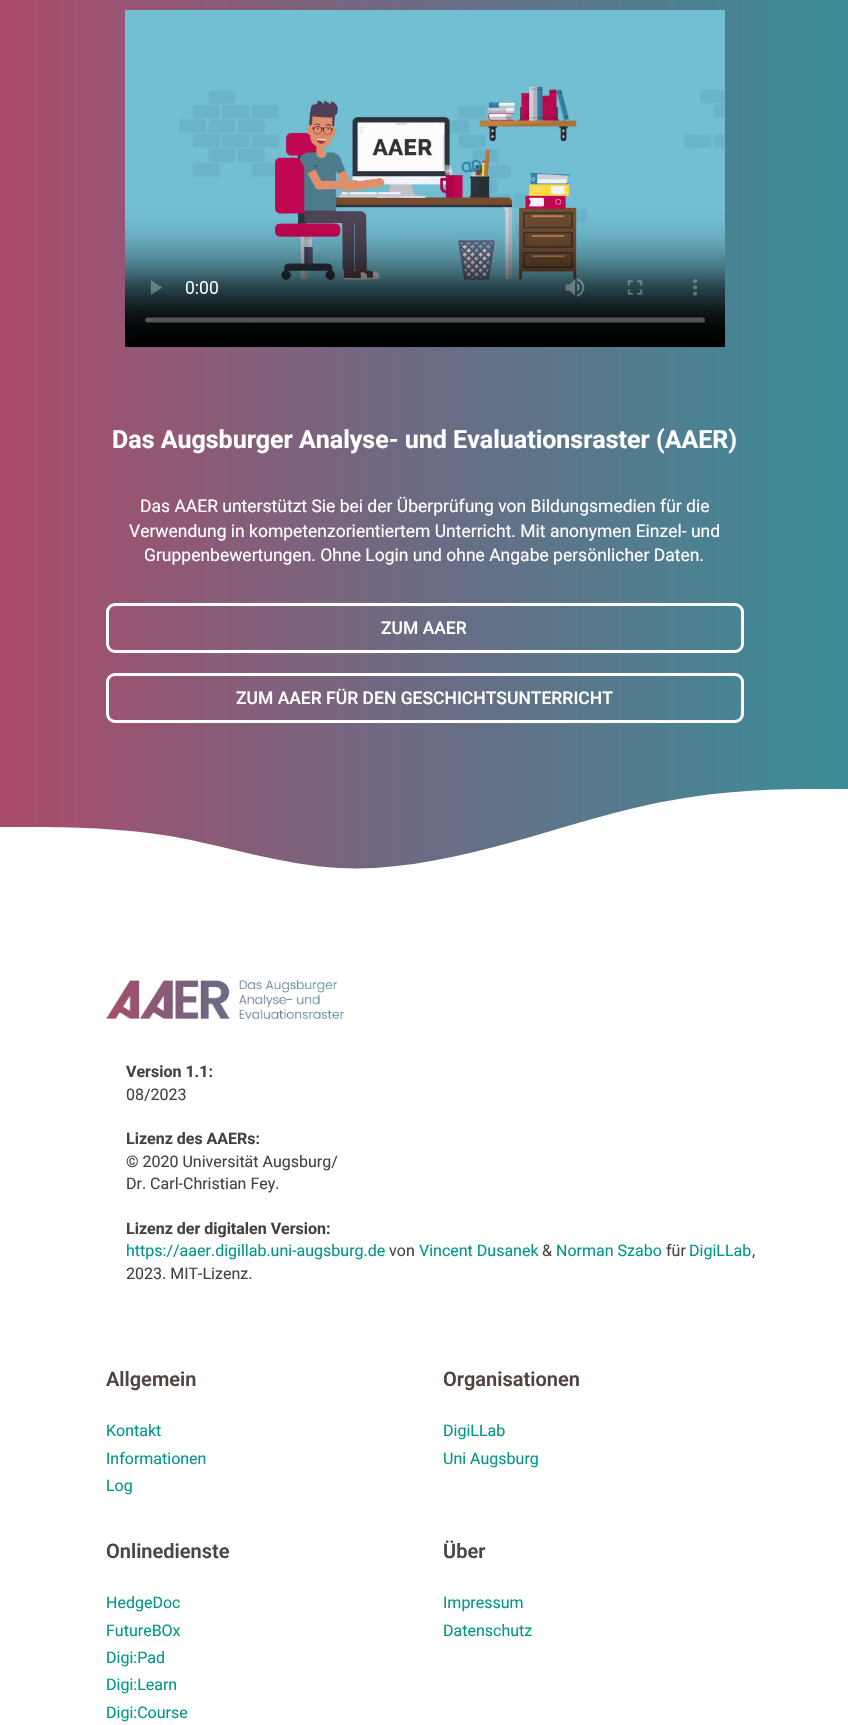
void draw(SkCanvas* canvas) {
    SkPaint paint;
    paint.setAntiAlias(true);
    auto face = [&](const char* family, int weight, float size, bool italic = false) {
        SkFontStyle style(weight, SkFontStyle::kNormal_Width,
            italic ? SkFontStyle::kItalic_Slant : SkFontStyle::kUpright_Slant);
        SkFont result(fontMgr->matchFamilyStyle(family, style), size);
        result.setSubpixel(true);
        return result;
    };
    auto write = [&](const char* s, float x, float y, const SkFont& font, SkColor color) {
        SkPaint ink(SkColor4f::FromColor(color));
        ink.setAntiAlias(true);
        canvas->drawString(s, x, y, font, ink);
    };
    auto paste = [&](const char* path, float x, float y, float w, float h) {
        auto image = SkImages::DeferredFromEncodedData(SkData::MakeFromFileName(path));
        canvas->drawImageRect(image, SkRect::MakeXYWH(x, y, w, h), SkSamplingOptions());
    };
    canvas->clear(SK_ColorWHITE);
    {
        const SkColor colors[] = {SkColorSetRGB(170, 75, 107), SkColorSetRGB(107, 107, 131), SkColorSetRGB(59, 141, 153)};
        const float stops[] = {0, 0.5f, 1};
        const SkPoint ends[] = {{0, 833}, {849, 833}};
        paint.setShader(SkGradientShader::MakeLinear(ends, colors, stops, 3, SkTileMode::kClamp));
        paint.setAlpha(255);
    }
    canvas->drawRect(SkRect::MakeXYWH(0, 0, 848, 869), paint);
    paste("pic1.png", 125, 10, 600, 338);
    auto kFont1 = face("Roboto", 700, 25);
    write("Das Augsburger Analyse- und Evaluationsraster (AAER)", 112, 448, kFont1, SK_ColorWHITE);
    auto kFont2 = face("Roboto", 400, 17.5f);
    write("Das AAER unterstützt Sie bei der Überprüfung von Bildungsmedien für die", 140, 512, kFont2, SK_ColorWHITE);
    write("Verwendung in kompetenzorientiertem Unterricht. Mit anonymen Einzel- und", 129, 537, kFont2, SK_ColorWHITE);
    write("Gruppenbewertungen. Ohne Login und ohne Angabe persönlicher Daten.", 144, 561, kFont2, SK_ColorWHITE);
    paint.setStyle(SkPaint::kStroke_Style);
    paint.setStrokeWidth(3);
    paint.setShader(nullptr);
    paint.setColor(SK_ColorWHITE);
    canvas->drawRoundRect(SkRect::MakeXYWH(107.5f, 604.5f, 635, 47), 7.5f, 7.5f, paint);
    auto kFont3 = face("Roboto", 500, 17.5f);
    write("ZUM AAER", 381, 634, kFont3, SK_ColorWHITE);
    canvas->drawRoundRect(SkRect::MakeXYWH(107.5f, 674.5f, 635, 47), 7.5f, 7.5f, paint);
    write("ZUM AAER FÜR DEN GESCHICHTSUNTERRICHT", 236, 704, kFont3, SK_ColorWHITE);
    paint.setStyle(SkPaint::kFill_Style);
    canvas->drawPath(SkPathBuilder().moveTo(0, 827).lineTo(28, 827).cubicTo(57, 827, 113, 827, 170, 836).cubicTo(226, 846, 283, 865, 339, 868).cubicTo(396, 871, 453, 858, 509, 843).cubicTo(566, 827, 622, 808, 679, 799).cubicTo(736, 789, 792, 789, 820, 789).lineTo(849, 789).lineTo(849, 921).lineTo(0, 921).close().detach(), paint);
    paste("pic2.png", 106, 980, 238, 39);
    auto kFont4 = face("Roboto", 700, 16);
    write("Version 1.1:", 126, 1077, kFont4, SkColorSetRGB(66, 66, 66));
    auto kFont5 = face("Roboto", 400, 16);
    write("08/2023", 126, 1100, kFont5, SkColorSetRGB(66, 66, 66));
    write("Lizenz des AAERs:", 126, 1144, kFont4, SkColorSetRGB(66, 66, 66));
    write("© 2020 Universität Augsburg/", 126, 1167, kFont5, SkColorSetRGB(66, 66, 66));
    write("Dr. Carl-Christian Fey.", 126, 1189, kFont5, SkColorSetRGB(66, 66, 66));
    write("Lizenz der digitalen Version:", 126, 1234, kFont4, SkColorSetRGB(66, 66, 66));
    write("https://aaer.digillab.uni-augsburg.de", 126, 1256, kFont5, SkColorSetRGB(0, 150, 136));
    write("von", 389, 1256, kFont5, SkColorSetRGB(66, 66, 66));
    write("Vincent Dusanek", 419, 1256, kFont5, SkColorSetRGB(0, 150, 136));
    write("&", 542, 1256, kFont5, SkColorSetRGB(66, 66, 66));
    write("Norman Szabo", 556, 1256, kFont5, SkColorSetRGB(0, 150, 136));
    write("für", 666, 1256, kFont5, SkColorSetRGB(66, 66, 66));
    write("DigiLLab", 689, 1256, kFont5, SkColorSetRGB(0, 150, 136));
    write(",", 752, 1256, kFont5, SkColorSetRGB(66, 66, 66));
    write("2023. MIT-Lizenz.", 126, 1279, kFont5, SkColorSetRGB(66, 66, 66));
    auto kFont6 = face("Roboto", 600, 20);
    write("Allgemein", 106, 1386, kFont6, SkColorSetRGB(78, 68, 66));
    write("Kontakt", 106, 1436, kFont5, SkColorSetRGB(0, 150, 136));
    write("Informationen", 106, 1464, kFont5, SkColorSetRGB(0, 150, 136));
    write("Log", 106, 1491, kFont5, SkColorSetRGB(0, 150, 136));
    write("Organisationen", 443, 1386, kFont6, SkColorSetRGB(78, 68, 66));
    write("DigiLLab", 443, 1436, kFont5, SkColorSetRGB(0, 150, 136));
    write("Uni Augsburg", 443, 1464, kFont5, SkColorSetRGB(0, 150, 136));
    write("Onlinedienste", 106, 1558, kFont6, SkColorSetRGB(78, 68, 66));
    write("HedgeDoc", 106, 1608, kFont5, SkColorSetRGB(0, 150, 136));
    write("FutureBOx", 106, 1636, kFont5, SkColorSetRGB(0, 150, 136));
    write("Digi:Pad", 106, 1663, kFont5, SkColorSetRGB(0, 150, 136));
    write("Digi:Learn", 106, 1690, kFont5, SkColorSetRGB(0, 150, 136));
    write("Digi:Course", 106, 1718, kFont5, SkColorSetRGB(0, 150, 136));
    write("Über", 443, 1558, kFont6, SkColorSetRGB(78, 68, 66));
    write("Impressum", 443, 1608, kFont5, SkColorSetRGB(0, 150, 136));
    write("Datenschutz", 443, 1636, kFont5, SkColorSetRGB(0, 150, 136));
}
